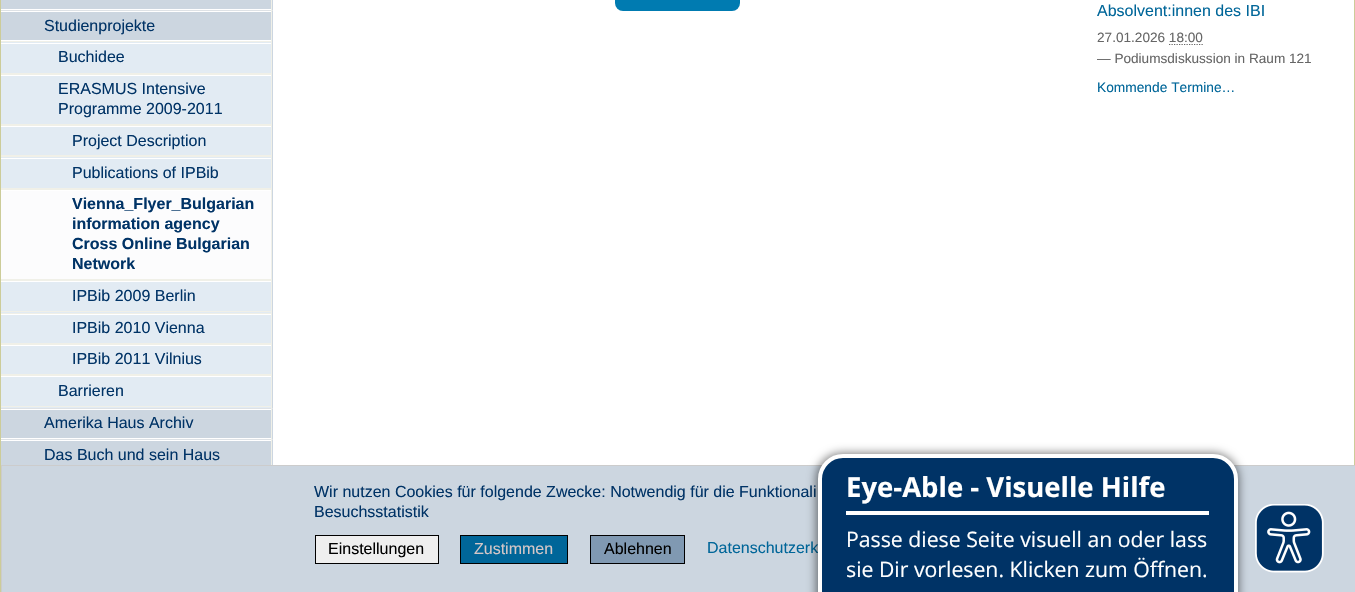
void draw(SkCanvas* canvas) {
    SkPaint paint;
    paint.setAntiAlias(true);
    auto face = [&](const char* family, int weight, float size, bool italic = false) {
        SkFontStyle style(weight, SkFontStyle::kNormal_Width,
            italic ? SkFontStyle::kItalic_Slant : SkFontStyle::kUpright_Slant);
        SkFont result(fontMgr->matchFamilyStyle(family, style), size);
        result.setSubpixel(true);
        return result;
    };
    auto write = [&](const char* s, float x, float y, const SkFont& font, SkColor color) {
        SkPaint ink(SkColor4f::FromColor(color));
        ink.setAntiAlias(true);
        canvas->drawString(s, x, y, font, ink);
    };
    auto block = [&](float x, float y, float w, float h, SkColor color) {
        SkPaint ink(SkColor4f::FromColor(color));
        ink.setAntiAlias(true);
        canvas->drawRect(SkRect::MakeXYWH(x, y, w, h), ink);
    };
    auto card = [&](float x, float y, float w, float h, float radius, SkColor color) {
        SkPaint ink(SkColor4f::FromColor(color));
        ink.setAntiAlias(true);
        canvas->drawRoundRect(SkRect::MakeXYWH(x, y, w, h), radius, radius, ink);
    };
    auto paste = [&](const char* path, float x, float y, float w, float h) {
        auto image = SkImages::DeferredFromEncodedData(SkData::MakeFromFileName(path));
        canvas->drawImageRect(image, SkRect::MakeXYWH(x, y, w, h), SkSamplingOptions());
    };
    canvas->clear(SK_ColorWHITE);
    block(1354, 0, 1, 465, SkColorSetRGB(204, 204, 153));
    block(0, 0, 1, 592, SkColorSetRGB(204, 204, 153));
    block(1, 0, 272, 10, SkColorSetRGB(204, 214, 224));
    block(271, 0, 1, 10, SkColorSetRGB(240, 240, 232));
    block(1, 9, 270, 1, SK_ColorWHITE);
    block(1, 11, 272, 397, SkColorSetRGB(204, 214, 224));
    block(1, 10, 272, 1, SkColorSetRGB(222, 226, 230));
    block(271, 10, 1, 398, SkColorSetRGB(240, 240, 232));
    block(1, 11, 270, 1, SK_ColorWHITE);
    block(1, 40, 270, 1, SK_ColorWHITE);
    auto kFont1 = face("Liberation Sans", 400, 16);
    write("Studienprojekte", 44, 31, kFont1, SkColorSetRGB(0, 51, 102));
    block(1, 42, 270, 31, SkColorSetRGB(226, 235, 243));
    block(1, 41, 270, 1, SkColorSetRGB(240, 240, 232));
    block(1, 43, 270, 1, SK_ColorWHITE);
    block(1, 73, 270, 2, SkColorSetRGB(240, 240, 232));
    write("Buchidee", 58, 62, kFont1, SkColorSetRGB(0, 51, 102));
    block(1, 76, 270, 298, SkColorSetRGB(226, 235, 243));
    block(1, 75, 270, 1, SK_ColorWHITE);
    block(1, 124, 270, 2, SkColorSetRGB(240, 240, 232));
    write("ERASMUS Intensive", 58, 94, kFont1, SkColorSetRGB(0, 51, 102));
    write("Programme 2009-2011", 58, 114, kFont1, SkColorSetRGB(0, 51, 102));
    block(1, 126, 270, 1, SK_ColorWHITE);
    block(1, 155, 270, 2, SkColorSetRGB(240, 240, 232));
    write("Project Description", 72, 146, kFont1, SkColorSetRGB(0, 51, 102));
    block(1, 158, 270, 1, SK_ColorWHITE);
    block(1, 188, 270, 2, SkColorSetRGB(240, 240, 232));
    write("Publications of IPBib", 72, 178, kFont1, SkColorSetRGB(0, 51, 102));
    block(1, 191, 270, 88, SkColorSetRGB(252, 252, 253));
    block(1, 190, 270, 1, SK_ColorWHITE);
    block(1, 279, 270, 2, SkColorSetRGB(240, 240, 232));
    auto kFont2 = face("Liberation Sans", 700, 16);
    write("Vienna_Flyer_Bulgarian", 72, 209, kFont2, SkColorSetRGB(0, 51, 102));
    write("information agency", 72, 229, kFont2, SkColorSetRGB(0, 51, 102));
    write("Cross Online Bulgarian", 72, 249, kFont2, SkColorSetRGB(0, 51, 102));
    write("Network", 72, 269, kFont2, SkColorSetRGB(0, 51, 102));
    block(1, 281, 270, 1, SK_ColorWHITE);
    block(1, 311, 270, 1, SkColorSetRGB(240, 240, 232));
    write("IPBib 2009 Berlin", 72, 301, kFont1, SkColorSetRGB(0, 51, 102));
    block(1, 313, 270, 1, SkColorSetRGB(240, 240, 232));
    block(1, 314, 270, 1, SK_ColorWHITE);
    block(1, 343, 270, 2, SkColorSetRGB(240, 240, 232));
    write("IPBib 2010 Vienna", 72, 333, kFont1, SkColorSetRGB(0, 51, 102));
    block(1, 345, 270, 1, SK_ColorWHITE);
    block(1, 374, 270, 2, SkColorSetRGB(240, 240, 232));
    write("IPBib 2011 Vilnius", 72, 364, kFont1, SkColorSetRGB(0, 51, 102));
    block(1, 377, 270, 31, SkColorSetRGB(226, 235, 243));
    block(1, 376, 270, 1, SK_ColorWHITE);
    block(1, 406, 270, 1, SkColorSetRGB(240, 240, 232));
    write("Barrieren", 58, 396, kFont1, SkColorSetRGB(0, 51, 102));
    block(1, 409, 272, 30, SkColorSetRGB(204, 214, 224));
    block(1, 408, 272, 1, SkColorSetRGB(222, 226, 230));
    block(271, 408, 1, 31, SkColorSetRGB(240, 240, 232));
    block(1, 409, 270, 1, SK_ColorWHITE);
    block(1, 438, 270, 1, SK_ColorWHITE);
    write("Amerika Haus Archiv", 44, 428, kFont1, SkColorSetRGB(0, 51, 102));
    block(1, 440, 272, 25, SkColorSetRGB(204, 214, 224));
    block(1, 439, 272, 1, SkColorSetRGB(222, 226, 230));
    block(271, 439, 1, 31, SkColorSetRGB(240, 240, 232));
    block(1, 440, 270, 1, SK_ColorWHITE);
    write("Das Buch und sein Haus", 44, 460, kFont1, SkColorSetRGB(0, 51, 102));
    card(615, -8, 125, 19, 8, SkColorSetRGB(0, 123, 177));
    write("Absolvent:innen des IBI", 1097, 16, kFont1, SkColorSetRGB(0, 102, 153));
    auto kFont3 = face("Liberation Sans", 400, 13.6f);
    write("27.01.2026 18:00", 1097, 42, kFont3, SkColorSetRGB(102, 102, 102));
    paint.setStyle(SkPaint::kStroke_Style);
    paint.setStrokeWidth(1.2f);
    paint.setColor(SkColorSetRGB(102, 102, 102));
    paint.setPathEffect(SkDashPathEffect::Make({{1.25f, 1.25f}}, 0));
    canvas->drawPath(SkPathBuilder().moveTo(1169, 44.5f).lineTo(1203, 44.5f).detach(), paint);
    paint.setPathEffect(nullptr);
    write("— Podiumsdiskussion in Raum 121", 1097, 63, kFont3, SkColorSetRGB(102, 102, 102));
    auto kFont4 = face("Liberation Sans", 400, 13.75f);
    write("Kommende Termine…", 1097, 92, kFont4, SkColorSetRGB(0, 102, 153));
    paint.setStyle(SkPaint::kFill_Style);
    paint.setColor(SkColorSetRGB(204, 214, 224));
    canvas->drawRect(SkRect::MakeXYWH(1.5f, 465.5f, 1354, 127), paint);
    paint.setStyle(SkPaint::kStroke_Style);
    paint.setStrokeWidth(1);
    paint.setColor(SkColorSetRGB(204, 204, 204));
    canvas->drawRect(SkRect::MakeXYWH(1.5f, 465.5f, 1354, 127), paint);
    write("Wir nutzen Cookies für folgende Zwecke: Notwendig für die Funktionali", 314, 497, kFont1, SkColorSetRGB(0, 51, 102));
    write("Besuchsstatistik", 314, 517, kFont1, SkColorSetRGB(0, 51, 102));
    paint.setStyle(SkPaint::kFill_Style);
    paint.setColor(SkColorSetRGB(239, 239, 239));
    canvas->drawRect(SkRect::MakeXYWH(315.5f, 535.5f, 123, 28), paint);
    paint.setStyle(SkPaint::kStroke_Style);
    paint.setColor(SK_ColorBLACK);
    canvas->drawRect(SkRect::MakeXYWH(315.5f, 535.5f, 123, 28), paint);
    write("Einstellungen", 328, 554, kFont1, SK_ColorBLACK);
    paint.setStyle(SkPaint::kFill_Style);
    paint.setColor(SkColorSetRGB(0, 102, 153));
    canvas->drawRect(SkRect::MakeXYWH(460.5f, 535.5f, 107, 28), paint);
    paint.setStyle(SkPaint::kStroke_Style);
    paint.setColor(SK_ColorBLACK);
    canvas->drawRect(SkRect::MakeXYWH(460.5f, 535.5f, 107, 28), paint);
    write("Zustimmen", 474, 554, kFont1, SkColorSetRGB(213, 199, 199));
    paint.setStyle(SkPaint::kFill_Style);
    paint.setColor(SkColorSetRGB(128, 153, 178));
    canvas->drawRect(SkRect::MakeXYWH(590.5f, 535.5f, 94, 28), paint);
    paint.setStyle(SkPaint::kStroke_Style);
    paint.setColor(SK_ColorBLACK);
    canvas->drawRect(SkRect::MakeXYWH(590.5f, 535.5f, 94, 28), paint);
    write("Ablehnen", 604, 554, kFont1, SK_ColorBLACK);
    write("Datenschutzerk", 707, 553, kFont1, SkColorSetRGB(0, 102, 153));
    paint.setStyle(SkPaint::kFill_Style);
    paint.setColor(SkColorSetARGB(128, 0, 0, 0));
    paint.setMaskFilter(SkMaskFilter::MakeBlur(kNormal_SkBlurStyle, 5));
    canvas->drawRoundRect(SkRect::MakeXYWH(816, 453, 423, 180), 26, 26, paint);
    paint.setMaskFilter(nullptr);
    paint.setColor(SkColorSetRGB(0, 51, 102));
    canvas->drawRoundRect(SkRect::MakeXYWH(820, 456, 416, 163), 23, 23, paint);
    paint.setStyle(SkPaint::kStroke_Style);
    paint.setStrokeWidth(4);
    paint.setColor(SK_ColorWHITE);
    canvas->drawRoundRect(SkRect::MakeXYWH(820, 456, 416, 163), 23, 23, paint);
    block(846, 511, 363, 4, SK_ColorWHITE);
    auto kFont5 = face("Open Sans", 700, 27.5f);
    write("Eye-Able - Visuelle Hilfe", 846, 497, kFont5, SK_ColorWHITE);
    auto kFont6 = face("Open Sans", 400, 21.25f);
    write("Passe diese Seite visuell an oder lass", 846, 547, kFont6, SK_ColorWHITE);
    write("sie Dir vorlesen. Klicken zum Öffnen.", 846, 577, kFont6, SK_ColorWHITE);
    paste("pic1.png", 1255, 504, 69, 69);
}
